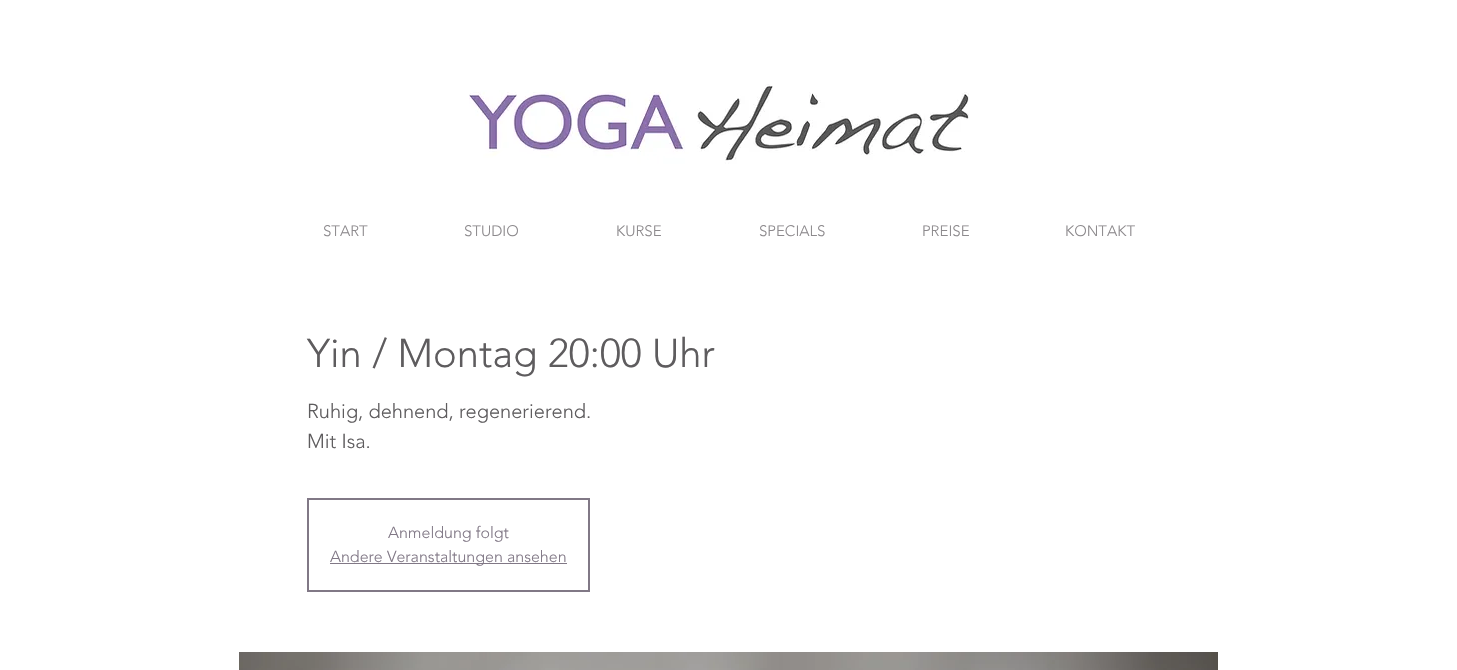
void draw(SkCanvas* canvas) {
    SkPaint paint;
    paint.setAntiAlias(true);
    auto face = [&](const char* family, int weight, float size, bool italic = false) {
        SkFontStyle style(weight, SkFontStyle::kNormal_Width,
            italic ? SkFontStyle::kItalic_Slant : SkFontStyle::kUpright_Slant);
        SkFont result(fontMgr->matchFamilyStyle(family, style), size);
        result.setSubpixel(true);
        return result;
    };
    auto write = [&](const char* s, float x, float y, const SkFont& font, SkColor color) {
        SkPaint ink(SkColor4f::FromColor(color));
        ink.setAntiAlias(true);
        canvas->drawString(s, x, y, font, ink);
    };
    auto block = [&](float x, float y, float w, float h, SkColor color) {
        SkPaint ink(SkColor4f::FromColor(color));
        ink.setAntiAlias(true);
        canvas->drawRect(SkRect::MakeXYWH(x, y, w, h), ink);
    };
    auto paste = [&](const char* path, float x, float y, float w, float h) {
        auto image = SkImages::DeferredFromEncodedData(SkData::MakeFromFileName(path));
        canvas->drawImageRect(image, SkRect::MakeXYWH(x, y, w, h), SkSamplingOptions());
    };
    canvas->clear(SK_ColorWHITE);
    paste("pic1.png", 469, 84, 500, 80);
    auto kFont1 = face("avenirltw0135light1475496", 300, 15);
    write("START", 323, 236, kFont1, SkColorSetRGB(141, 138, 141));
    write("STUDIO", 464, 236, kFont1, SkColorSetRGB(141, 138, 141));
    write("KURSE", 616, 236, kFont1, SkColorSetRGB(141, 138, 141));
    write("SPECIALS", 759, 236, kFont1, SkColorSetRGB(141, 138, 141));
    write("PREISE", 922, 236, kFont1, SkColorSetRGB(141, 138, 141));
    write("KONTAKT", 1065, 236, kFont1, SkColorSetRGB(141, 138, 141));
    auto kFont2 = face("avenirltw0135light1475496", 300, 40);
    write("Yin / Montag 20:00 Uhr", 307, 367, kFont2, SkColorSetRGB(94, 92, 94));
    auto kFont3 = face("avenirltw0135light1475496", 300, 20);
    write("Ruhig, dehnend, regenerierend.", 307, 418, kFont3, SkColorSetRGB(94, 92, 94));
    write("Mit Isa.", 307, 448, kFont3, SkColorSetRGB(94, 92, 94));
    paint.setStyle(SkPaint::kStroke_Style);
    paint.setStrokeWidth(2);
    paint.setColor(SkColorSetRGB(129, 120, 134));
    canvas->drawRect(SkRect::MakeXYWH(308, 499, 281, 92), paint);
    auto kFont4 = face("avenirltw0135light1475496", 300, 16);
    write("Anmeldung folgt", 388, 538, kFont4, SkColorSetRGB(129, 120, 134));
    block(330, 563, 237, 1, SkColorSetRGB(129, 120, 134));
    write("Andere Veranstaltungen ansehen", 330, 562, kFont4, SkColorSetRGB(129, 120, 134));
    paste("pic2.png", 239, 652, 979, 18);
}
